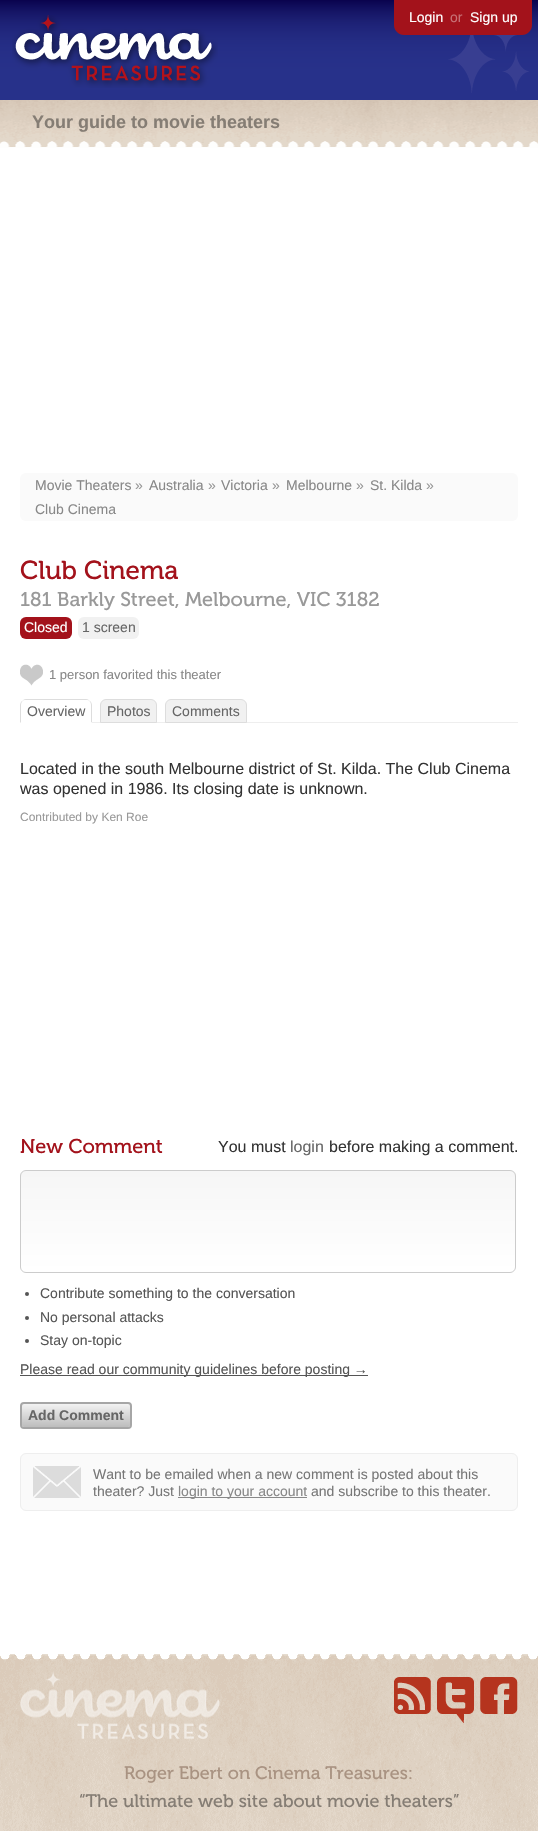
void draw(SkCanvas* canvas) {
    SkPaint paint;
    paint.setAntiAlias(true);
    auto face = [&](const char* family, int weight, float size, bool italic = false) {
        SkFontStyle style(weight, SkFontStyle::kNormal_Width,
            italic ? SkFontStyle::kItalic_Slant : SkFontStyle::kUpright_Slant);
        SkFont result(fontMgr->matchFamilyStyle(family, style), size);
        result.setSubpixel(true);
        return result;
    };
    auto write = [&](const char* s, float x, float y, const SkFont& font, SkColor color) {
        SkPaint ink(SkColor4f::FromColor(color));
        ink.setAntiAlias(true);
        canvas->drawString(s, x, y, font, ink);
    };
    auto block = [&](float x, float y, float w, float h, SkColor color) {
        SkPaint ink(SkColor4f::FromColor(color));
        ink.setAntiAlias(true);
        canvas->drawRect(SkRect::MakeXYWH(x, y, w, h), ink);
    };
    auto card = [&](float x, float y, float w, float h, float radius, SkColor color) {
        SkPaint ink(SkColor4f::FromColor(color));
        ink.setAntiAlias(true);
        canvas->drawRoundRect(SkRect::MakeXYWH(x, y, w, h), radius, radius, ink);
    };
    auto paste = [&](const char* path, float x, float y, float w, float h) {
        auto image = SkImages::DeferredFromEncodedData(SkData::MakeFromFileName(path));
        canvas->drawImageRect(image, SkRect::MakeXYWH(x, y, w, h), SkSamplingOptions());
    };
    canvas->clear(SK_ColorWHITE);
    paste("pic1.png", 0, 0, 538, 100);
    paste("pic2.png", 12, 15, 206, 73);
    paint.setColor(SkColorSetRGB(163, 18, 27));
    canvas->drawPath(SkPathBuilder().moveTo(394, 0).lineTo(532, 0).lineTo(532, 25).cubicTo(532, 30.5f, 527.5f, 35, 522, 35).lineTo(404, 35).cubicTo(398.5f, 35, 394, 30.5f, 394, 25).close().detach(), paint);
    auto kFont1 = face("Liberation Sans", 400, 14);
    write("Login", 409, 22, kFont1, SK_ColorWHITE);
    write("or", 450, 22, kFont1, SkColorSetRGB(200, 113, 118));
    write("Sign up", 470, 22, kFont1, SK_ColorWHITE);
    paste("pic3.png", 448, 35, 81, 58);
    paste("pic4.png", 0, 100, 538, 48);
    auto kFont2 = face("Liberation Sans", 700, 18);
    write("Your guide to movie theaters", 32, 128, kFont2, SkColorSetRGB(133, 125, 116));
    card(20, 473, 498, 48, 6, SkColorSetRGB(250, 250, 250));
    write("Movie Theaters", 35, 490, kFont1, SkColorSetRGB(136, 136, 136));
    write("»", 135, 490, kFont1, SkColorSetRGB(153, 153, 153));
    write("Australia", 149, 490, kFont1, SkColorSetRGB(136, 136, 136));
    write("»", 208, 490, kFont1, SkColorSetRGB(153, 153, 153));
    write("Victoria", 221, 490, kFont1, SkColorSetRGB(136, 136, 136));
    write("»", 272, 490, kFont1, SkColorSetRGB(153, 153, 153));
    write("Melbourne", 286, 490, kFont1, SkColorSetRGB(136, 136, 136));
    write("»", 356, 490, kFont1, SkColorSetRGB(153, 153, 153));
    write("St. Kilda", 370, 490, kFont1, SkColorSetRGB(136, 136, 136));
    write("»", 426, 490, kFont1, SkColorSetRGB(153, 153, 153));
    write("Club Cinema", 35, 514, kFont1, SkColorSetRGB(136, 136, 136));
    auto kFont3 = face("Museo", 400, 26);
    write("Club Cinema", 20, 579, kFont3, SkColorSetRGB(163, 18, 27));
    auto kFont4 = face("Museo", 400, 20);
    write("181 Barkly Street, Melbourne, VIC 3182", 20, 606, kFont4, SkColorSetRGB(153, 153, 153));
    card(20, 617, 52, 22, 6, SkColorSetRGB(163, 18, 27));
    write("Closed", 24, 632, kFont1, SK_ColorWHITE);
    card(78, 617, 61, 22, 6, SkColorSetRGB(241, 241, 241));
    write("1 screen", 82, 632, kFont1, SkColorSetRGB(102, 102, 102));
    paste("pic5.png", 20, 664, 23, 22);
    auto kFont5 = face("Liberation Sans", 400, 13);
    write("1 person favorited this theater", 49, 679, kFont5, SkColorSetRGB(136, 136, 136));
    block(92, 722, 426, 1, SkColorSetRGB(238, 238, 238));
    write("Overview", 27, 716, kFont1, SkColorSetRGB(102, 102, 102));
    paint.setColor(SkColorSetRGB(221, 221, 221));
    canvas->drawPath(SkPathBuilder().moveTo(26, 699).cubicTo(24, 699, 23, 700, 22, 701).cubicTo(23, 700, 24, 700, 26, 700).lineTo(86, 700).cubicTo(88, 700, 89, 700, 90, 701).cubicTo(89, 700, 88, 699, 86, 699).close().detach(), paint);
    canvas->drawPath(SkPathBuilder().moveTo(92, 723).lineTo(92, 705).cubicTo(92, 703.5f, 91, 702, 90, 701).lineTo(89.5f, 701.5f).cubicTo(90.5f, 702, 91, 703.5f, 91, 705).lineTo(91, 722).close().detach(), paint);
    paint.setColor(SK_ColorWHITE);
    canvas->drawPath(SkPathBuilder().moveTo(92, 723).lineTo(91, 722).lineTo(21, 722).lineTo(20, 723).close().detach(), paint);
    paint.setColor(SkColorSetRGB(221, 221, 221));
    canvas->drawPath(SkPathBuilder().moveTo(20, 723).lineTo(21, 722).lineTo(21, 705).cubicTo(21, 703.5f, 21.5f, 702, 22.5f, 701.5f).lineTo(22, 701).cubicTo(21, 702, 20, 703.5f, 20, 705).close().detach(), paint);
    paint.setColor(SkColorSetRGB(241, 241, 241));
    canvas->drawPath(SkPathBuilder().moveTo(106, 699.5f).lineTo(151, 699.5f).cubicTo(154, 699.5f, 156.5f, 702, 156.5f, 705).lineTo(156.5f, 722.5f).lineTo(100.5f, 722.5f).lineTo(100.5f, 705).cubicTo(100.5f, 702, 103, 699.5f, 106, 699.5f).close().detach(), paint);
    paint.setStyle(SkPaint::kStroke_Style);
    paint.setStrokeWidth(1);
    paint.setColor(SkColorSetRGB(221, 221, 221));
    canvas->drawPath(SkPathBuilder().moveTo(106, 699.5f).lineTo(151, 699.5f).cubicTo(154, 699.5f, 156.5f, 702, 156.5f, 705).lineTo(156.5f, 722.5f).lineTo(100.5f, 722.5f).lineTo(100.5f, 705).cubicTo(100.5f, 702, 103, 699.5f, 106, 699.5f).close().detach(), paint);
    write("Photos", 107, 716, kFont1, SkColorSetRGB(102, 102, 102));
    paint.setStyle(SkPaint::kFill_Style);
    paint.setColor(SkColorSetRGB(241, 241, 241));
    canvas->drawPath(SkPathBuilder().moveTo(171, 699.5f).lineTo(241, 699.5f).cubicTo(244, 699.5f, 246.5f, 702, 246.5f, 705).lineTo(246.5f, 722.5f).lineTo(165.5f, 722.5f).lineTo(165.5f, 705).cubicTo(165.5f, 702, 168, 699.5f, 171, 699.5f).close().detach(), paint);
    paint.setStyle(SkPaint::kStroke_Style);
    paint.setColor(SkColorSetRGB(221, 221, 221));
    canvas->drawPath(SkPathBuilder().moveTo(171, 699.5f).lineTo(241, 699.5f).cubicTo(244, 699.5f, 246.5f, 702, 246.5f, 705).lineTo(246.5f, 722.5f).lineTo(165.5f, 722.5f).lineTo(165.5f, 705).cubicTo(165.5f, 702, 168, 699.5f, 171, 699.5f).close().detach(), paint);
    write("Comments", 172, 716, kFont1, SkColorSetRGB(102, 102, 102));
    auto kFont6 = face("Liberation Sans", 400, 16);
    write("Located in the south Melbourne district of St. Kilda. The Club Cinema", 20, 774, kFont6, SkColorSetRGB(51, 51, 51));
    write("was opened in 1986. Its closing date is unknown.", 20, 794, kFont6, SkColorSetRGB(51, 51, 51));
    auto kFont7 = face("Liberation Sans", 400, 12);
    write("Contributed by Ken Roe", 20, 821, kFont7, SkColorSetRGB(153, 153, 153));
    write("New Comment", 20, 1153, kFont4, SkColorSetRGB(163, 18, 27));
    write("You must", 218, 1152, kFont6, SkColorSetRGB(51, 51, 51));
    write("login", 290, 1152, kFont6, SkColorSetRGB(102, 102, 102));
    write("before making a comment.", 329, 1152, kFont6, SkColorSetRGB(51, 51, 51));
    canvas->save();
    canvas->clipPath(SkPathBuilder().moveTo(26, 1170).lineTo(510, 1170).cubicTo(513.5f, 1170, 516, 1172.5f, 516, 1176).lineTo(516, 1267).cubicTo(516, 1270.5f, 513.5f, 1273, 510, 1273).lineTo(26, 1273).cubicTo(22.5f, 1273, 20, 1270.5f, 20, 1267).lineTo(20, 1176).cubicTo(20, 1172.5f, 22.5f, 1170, 26, 1170).close().detach(), true);
    paint.setStyle(SkPaint::kFill_Style);
    {
        const SkColor colors[] = {SkColorSetRGB(246, 246, 246), SK_ColorWHITE};
        const float stops[] = {0, 1};
        const SkPoint ends[] = {{268, 1171}, {268, 1272}};
        paint.setShader(SkGradientShader::MakeLinear(ends, colors, stops, 2, SkTileMode::kClamp));
        paint.setAlpha(255);
    }
    canvas->drawRect(SkRect::MakeXYWH(20, 1171, 496, 101), paint);
    canvas->restore();
    paint.setStyle(SkPaint::kStroke_Style);
    paint.setShader(nullptr);
    paint.setColor(SkColorSetRGB(204, 204, 204));
    canvas->drawRoundRect(SkRect::MakeXYWH(20.5f, 1170.5f, 495, 102), 5.5f, 5.5f, paint);
    paint.setStyle(SkPaint::kFill_Style);
    paint.setColor(SkColorSetRGB(85, 85, 85));
    canvas->drawCircle(27, 1294, 2, paint);
    write("Contribute something to the conversation", 40, 1298, kFont1, SkColorSetRGB(85, 85, 85));
    canvas->drawCircle(27, 1318, 2, paint);
    write("No personal attacks", 40, 1322, kFont1, SkColorSetRGB(85, 85, 85));
    canvas->drawCircle(27, 1341, 2, paint);
    write("Stay on-topic", 40, 1345, kFont1, SkColorSetRGB(85, 85, 85));
    block(20, 1375, 348, 1, SkColorSetRGB(85, 85, 85));
    write("Please read our community guidelines before posting →", 20, 1374, kFont1, SkColorSetRGB(85, 85, 85));
    {
        const SkColor colors[] = {SkColorSetRGB(242, 242, 242), SkColorSetRGB(189, 189, 189)};
        const float stops[] = {0, 1};
        const SkPoint ends[] = {{76, 1404}, {76, 1427}};
        paint.setShader(SkGradientShader::MakeLinear(ends, colors, stops, 2, SkTileMode::kClamp));
        paint.setAlpha(255);
    }
    canvas->drawRoundRect(SkRect::MakeXYWH(22, 1404, 108, 23), 2, 2, paint);
    paint.setStyle(SkPaint::kStroke_Style);
    paint.setStrokeWidth(2);
    paint.setShader(nullptr);
    paint.setColor(SkColorSetRGB(166, 166, 166));
    canvas->drawRoundRect(SkRect::MakeXYWH(21, 1403, 110, 25), 3, 3, paint);
    auto kFont8 = face("Liberation Sans", 700, 14);
    write("Add Comment", 28, 1420, kFont8, SkColorSetRGB(102, 102, 102));
    paint.setStyle(SkPaint::kFill_Style);
    paint.setColor(SkColorSetRGB(250, 250, 250));
    canvas->drawRoundRect(SkRect::MakeXYWH(20.5f, 1453.5f, 497, 57), 5.5f, 5.5f, paint);
    paint.setStyle(SkPaint::kStroke_Style);
    paint.setStrokeWidth(1);
    paint.setColor(SkColorSetRGB(238, 238, 238));
    canvas->drawRoundRect(SkRect::MakeXYWH(20.5f, 1453.5f, 497, 57), 5.5f, 5.5f, paint);
    paste("pic6.png", 33, 1466, 48, 32);
    write("Want to be emailed when a new comment is posted about this", 93, 1479, kFont1, SkColorSetRGB(119, 119, 119));
    write("theater? Just", 93, 1496, kFont1, SkColorSetRGB(119, 119, 119));
    block(178, 1497, 129, 1, SkColorSetRGB(136, 136, 136));
    write("login to your account", 178, 1496, kFont1, SkColorSetRGB(136, 136, 136));
    write("and subscribe to this theater.", 311, 1496, kFont1, SkColorSetRGB(119, 119, 119));
    paste("pic7.png", 0, 1654, 538, 177);
    paste("pic8.png", 20, 1671, 200, 68);
    paste("pic9.png", 394, 1677, 37, 37);
    paste("pic10.png", 437, 1677, 37, 46);
    paste("pic11.png", 480, 1677, 38, 37);
    auto kFont9 = face("Museo", 400, 18);
    write("Roger Ebert on Cinema Treasures:", 124, 1779, kFont9, SkColorSetRGB(169, 147, 130));
    write("“The ultimate web site about movie theaters”", 79, 1807, kFont9, SkColorSetRGB(133, 125, 116));
}
